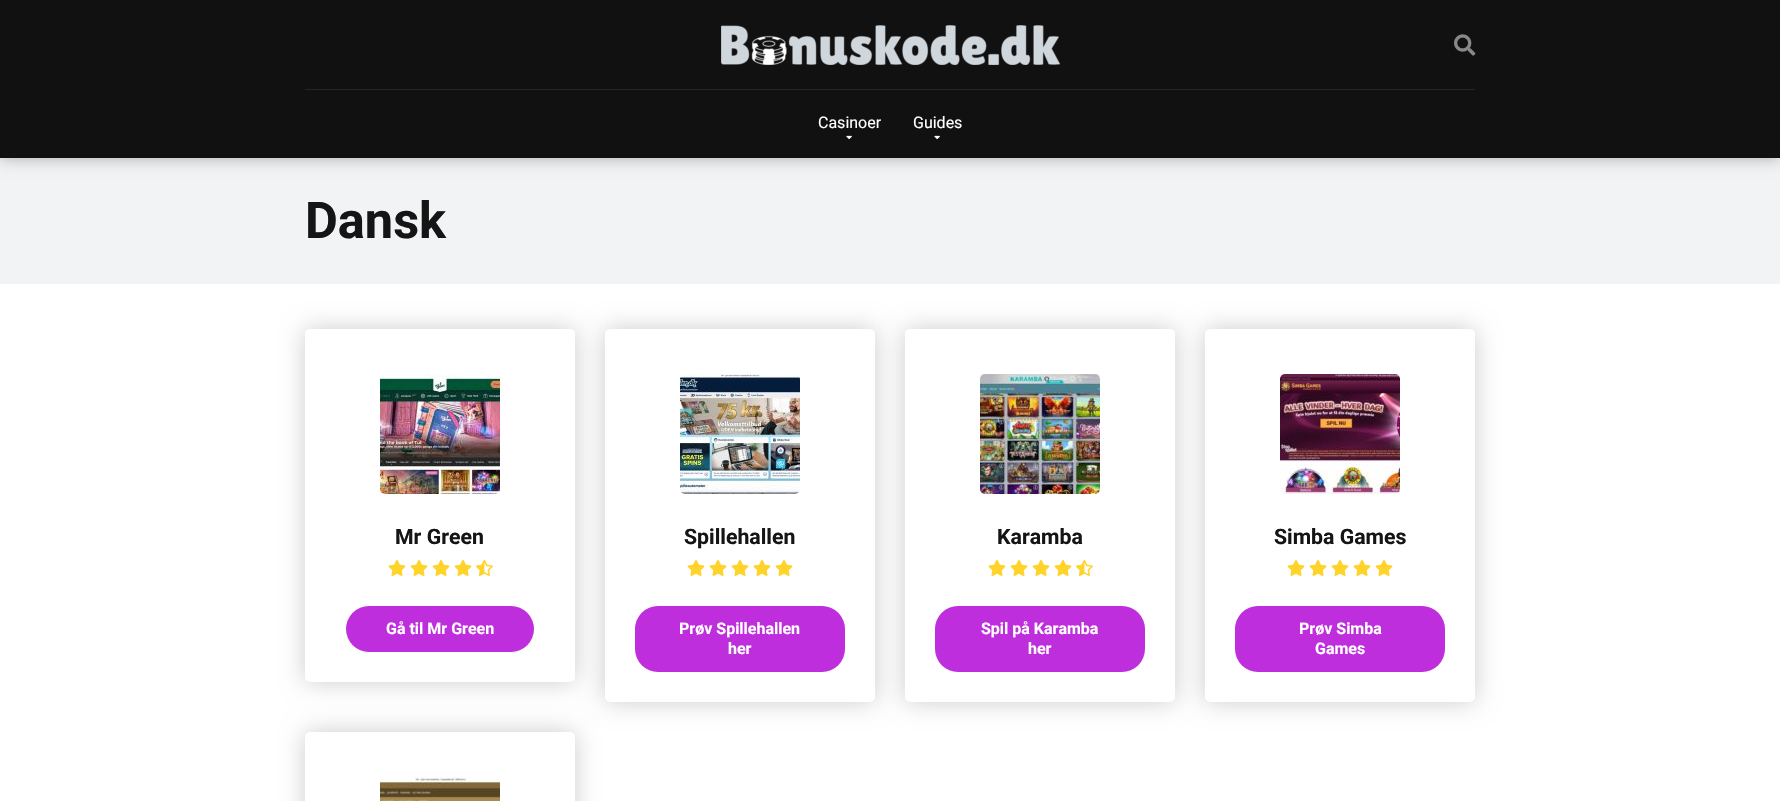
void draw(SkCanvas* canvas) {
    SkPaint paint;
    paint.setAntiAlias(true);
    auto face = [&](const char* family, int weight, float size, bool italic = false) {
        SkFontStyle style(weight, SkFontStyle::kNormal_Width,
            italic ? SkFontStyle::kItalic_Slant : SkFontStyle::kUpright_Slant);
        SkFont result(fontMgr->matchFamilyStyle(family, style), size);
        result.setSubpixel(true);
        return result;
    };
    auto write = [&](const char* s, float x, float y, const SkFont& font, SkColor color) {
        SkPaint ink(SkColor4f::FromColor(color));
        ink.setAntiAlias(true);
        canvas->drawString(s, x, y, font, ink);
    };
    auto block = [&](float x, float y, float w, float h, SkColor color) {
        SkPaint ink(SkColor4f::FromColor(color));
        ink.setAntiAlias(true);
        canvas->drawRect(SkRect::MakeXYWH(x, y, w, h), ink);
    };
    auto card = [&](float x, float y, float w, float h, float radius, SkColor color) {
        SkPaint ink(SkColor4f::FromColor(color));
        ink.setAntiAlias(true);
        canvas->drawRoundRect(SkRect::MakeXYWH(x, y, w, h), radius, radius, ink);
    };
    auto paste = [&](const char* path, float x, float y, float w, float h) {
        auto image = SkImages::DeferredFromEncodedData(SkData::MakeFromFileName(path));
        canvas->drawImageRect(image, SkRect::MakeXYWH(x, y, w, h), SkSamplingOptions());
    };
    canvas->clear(SK_ColorWHITE);
    block(0, 158, 1780, 126, SkColorSetRGB(241, 243, 244));
    paint.setColor(SkColorSetARGB(77, 0, 0, 0));
    paint.setMaskFilter(SkMaskFilter::MakeBlur(kNormal_SkBlurStyle, 7.5f));
    canvas->drawRect(SkRect::MakeXYWH(0, 0, 1780, 158), paint);
    paint.setMaskFilter(nullptr);
    block(0, 0, 1780, 158, SkColorSetRGB(17, 17, 17));
    block(305, 89, 1170, 1, SkColorSetRGB(37, 37, 37));
    paste("pic1.png", 721, 25, 339, 40);
    paste("pic2.png", 1454, 34, 22, 22);
    auto kFont1 = face("Roboto", 400, 16);
    write("Casinoer", 818, 128, kFont1, SK_ColorWHITE);
    paste("pic3.png", 846, 135, 6, 5);
    write("Guides", 913, 128, kFont1, SK_ColorWHITE);
    paste("pic3.png", 934, 135, 6, 5);
    auto kFont2 = face("Roboto", 700, 50.5f);
    write("Dansk", 305, 238, kFont2, SkColorSetRGB(21, 21, 21));
    paint.setColor(SkColorSetARGB(51, 0, 0, 0));
    paint.setMaskFilter(SkMaskFilter::MakeBlur(kNormal_SkBlurStyle, 12.5f));
    canvas->drawRoundRect(SkRect::MakeXYWH(305, 329, 270, 353), 5, 5, paint);
    paint.setMaskFilter(nullptr);
    card(305, 329, 270, 353, 5, SK_ColorWHITE);
    paste("pic4.png", 380, 374, 120, 120);
    auto kFont3 = face("Roboto", 700, 21.25f);
    write("Mr Green", 395, 544, kFont3, SkColorSetRGB(21, 21, 21));
    paste("pic5.png", 388, 560, 18, 16);
    paste("pic5.png", 410, 560, 18, 16);
    paste("pic5.png", 432, 560, 18, 16);
    paste("pic5.png", 454, 560, 18, 16);
    paste("pic6.png", 476, 560, 17, 16);
    card(346, 606, 188, 46, 23, SkColorSetRGB(190, 46, 221));
    auto kFont4 = face("Roboto", 700, 16);
    write("Gå til Mr Green", 386, 634, kFont4, SK_ColorWHITE);
    paint.setMaskFilter(SkMaskFilter::MakeBlur(kNormal_SkBlurStyle, 12.5f));
    canvas->drawRoundRect(SkRect::MakeXYWH(605, 329, 270, 373), 5, 5, paint);
    paint.setMaskFilter(nullptr);
    card(605, 329, 270, 373, 5, SK_ColorWHITE);
    paste("pic7.png", 680, 374, 120, 120);
    write("Spillehallen", 684, 544, kFont3, SkColorSetRGB(21, 21, 21));
    paste("pic5.png", 687, 560, 18, 16);
    paste("pic5.png", 709, 560, 18, 16);
    paste("pic5.png", 731, 560, 18, 16);
    paste("pic5.png", 753, 560, 18, 16);
    paste("pic5.png", 775, 560, 18, 16);
    card(635, 606, 210, 66, 23, SkColorSetRGB(190, 46, 221));
    write("Prøv Spillehallen", 679, 634, kFont4, SK_ColorWHITE);
    write("her", 728, 654, kFont4, SK_ColorWHITE);
    paint.setMaskFilter(SkMaskFilter::MakeBlur(kNormal_SkBlurStyle, 12.5f));
    canvas->drawRoundRect(SkRect::MakeXYWH(905, 329, 270, 373), 5, 5, paint);
    paint.setMaskFilter(nullptr);
    card(905, 329, 270, 373, 5, SK_ColorWHITE);
    paste("pic8.png", 980, 374, 120, 120);
    write("Karamba", 997, 544, kFont3, SkColorSetRGB(21, 21, 21));
    paste("pic5.png", 988, 560, 18, 16);
    paste("pic5.png", 1010, 560, 18, 16);
    paste("pic5.png", 1032, 560, 18, 16);
    paste("pic5.png", 1054, 560, 18, 16);
    paste("pic6.png", 1076, 560, 17, 16);
    card(935, 606, 210, 66, 23, SkColorSetRGB(190, 46, 221));
    write("Spil på Karamba", 981, 634, kFont4, SK_ColorWHITE);
    write("her", 1028, 654, kFont4, SK_ColorWHITE);
    paint.setMaskFilter(SkMaskFilter::MakeBlur(kNormal_SkBlurStyle, 12.5f));
    canvas->drawRoundRect(SkRect::MakeXYWH(1205, 329, 270, 373), 5, 5, paint);
    paint.setMaskFilter(nullptr);
    card(1205, 329, 270, 373, 5, SK_ColorWHITE);
    paste("pic9.png", 1280, 374, 120, 120);
    write("Simba Games", 1274, 544, kFont3, SkColorSetRGB(21, 21, 21));
    paste("pic5.png", 1287, 560, 18, 16);
    paste("pic5.png", 1309, 560, 18, 16);
    paste("pic5.png", 1331, 560, 18, 16);
    paste("pic5.png", 1353, 560, 18, 16);
    paste("pic5.png", 1375, 560, 18, 16);
    card(1235, 606, 210, 66, 23, SkColorSetRGB(190, 46, 221));
    write("Prøv Simba", 1299, 634, kFont4, SK_ColorWHITE);
    write("Games", 1315, 654, kFont4, SK_ColorWHITE);
    paint.setMaskFilter(SkMaskFilter::MakeBlur(kNormal_SkBlurStyle, 12.5f));
    canvas->drawRoundRect(SkRect::MakeXYWH(305, 732, 270, 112), 5, 5, paint);
    paint.setMaskFilter(nullptr);
    card(305, 732, 270, 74, 5, SK_ColorWHITE);
    paste("pic10.png", 380, 777, 120, 24);
}
